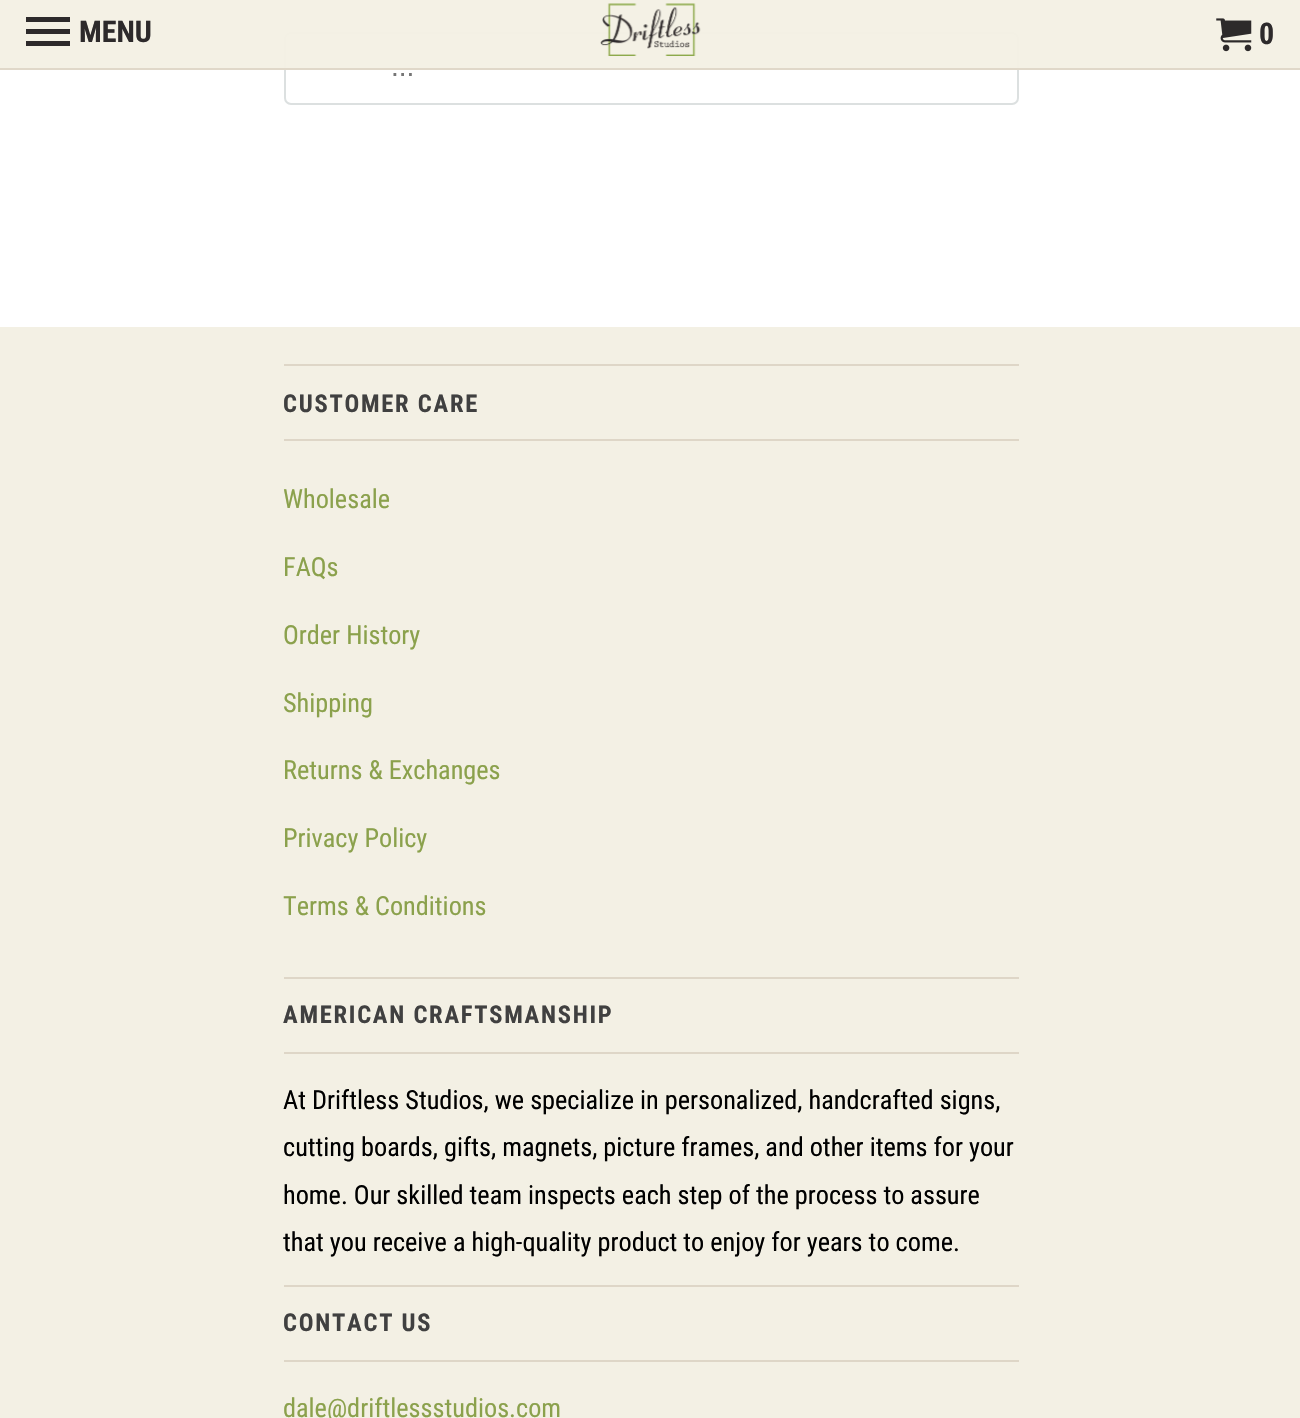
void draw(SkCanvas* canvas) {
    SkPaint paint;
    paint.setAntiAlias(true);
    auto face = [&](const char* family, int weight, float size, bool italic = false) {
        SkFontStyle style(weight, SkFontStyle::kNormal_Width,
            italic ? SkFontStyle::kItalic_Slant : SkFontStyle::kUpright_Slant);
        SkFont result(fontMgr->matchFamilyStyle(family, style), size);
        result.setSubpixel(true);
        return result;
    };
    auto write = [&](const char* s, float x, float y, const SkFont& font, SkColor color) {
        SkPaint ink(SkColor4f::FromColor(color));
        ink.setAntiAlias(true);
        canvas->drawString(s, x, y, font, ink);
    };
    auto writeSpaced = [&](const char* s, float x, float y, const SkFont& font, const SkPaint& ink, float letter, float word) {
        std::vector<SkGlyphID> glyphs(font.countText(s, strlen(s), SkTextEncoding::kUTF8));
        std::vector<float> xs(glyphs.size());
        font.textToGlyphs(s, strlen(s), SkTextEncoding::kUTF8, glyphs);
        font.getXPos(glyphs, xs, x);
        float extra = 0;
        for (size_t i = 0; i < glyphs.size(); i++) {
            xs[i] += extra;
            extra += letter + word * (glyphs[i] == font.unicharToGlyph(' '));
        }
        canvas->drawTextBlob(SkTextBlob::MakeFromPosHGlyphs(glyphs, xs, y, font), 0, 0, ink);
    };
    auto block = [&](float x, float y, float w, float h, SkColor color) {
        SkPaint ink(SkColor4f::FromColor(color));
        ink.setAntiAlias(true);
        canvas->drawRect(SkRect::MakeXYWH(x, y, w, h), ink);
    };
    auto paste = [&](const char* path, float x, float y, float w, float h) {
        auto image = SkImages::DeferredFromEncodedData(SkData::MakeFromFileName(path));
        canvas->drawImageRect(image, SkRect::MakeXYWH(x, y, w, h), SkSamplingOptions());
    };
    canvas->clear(SK_ColorWHITE);
    paint.setStyle(SkPaint::kStroke_Style);
    paint.setStrokeWidth(2);
    paint.setColor(SkColorSetRGB(220, 224, 224));
    canvas->drawRoundRect(SkRect::MakeXYWH(285, 33, 733, 71), 6, 6, paint);
    block(0, 0, 1300, 70, SkColorSetARGB(242, 243, 240, 228));
    block(0, 68, 1300, 2, SkColorSetARGB(242, 222, 214, 199));
    paint.setStyle(SkPaint::kFill_Style);
    paint.setColor(SkColorSetRGB(45, 42, 43));
    canvas->drawPath(SkPathBuilder().moveTo(26, 46).lineTo(70, 46).lineTo(70, 41).lineTo(26, 41).close().moveTo(26, 34).lineTo(70, 34).lineTo(70, 29).lineTo(26, 29).close().moveTo(26, 17).lineTo(26, 22).lineTo(70, 22).lineTo(70, 17).close().detach(), paint);
    auto kFont1 = face("Roboto Condensed", 700, 30);
    write("MENU", 79, 42, kFont1, SkColorSetRGB(45, 42, 43));
    paste("pic1.png", 600, 3, 101, 53);
    paste("pic2.png", 1216, 18, 36, 34);
    write("0", 1259, 44, kFont1, SkColorSetRGB(45, 42, 43));
    auto kFont2 = face("Liberation Sans", 400, 28);
    write("...", 391, 76, kFont2, SkColorSetRGB(117, 117, 117));
    block(0, 327, 1300, 1091, SkColorSetRGB(243, 240, 228));
    block(284, 364, 735, 2, SkColorSetRGB(222, 214, 199));
    block(284, 439, 735, 2, SkColorSetRGB(222, 214, 199));
    auto kFont3 = face("Roboto Condensed", 700, 24.5f);
    paint.setColor(SkColorSetRGB(64, 64, 64));
    writeSpaced("CUSTOMER CARE", 283, 412, kFont3, paint, 1.75f, 0);
    auto kFont4 = face("Roboto Condensed", 400, 26.25f);
    write("Wholesale", 283, 508, kFont4, SkColorSetRGB(139, 161, 76));
    write("FAQs", 283, 576, kFont4, SkColorSetRGB(139, 161, 76));
    write("Order History", 283, 644, kFont4, SkColorSetRGB(139, 161, 76));
    write("Shipping", 283, 712, kFont4, SkColorSetRGB(139, 161, 76));
    write("Returns & Exchanges", 283, 779, kFont4, SkColorSetRGB(139, 161, 76));
    write("Privacy Policy", 283, 847, kFont4, SkColorSetRGB(139, 161, 76));
    write("Terms & Conditions", 283, 915, kFont4, SkColorSetRGB(139, 161, 76));
    block(284, 977, 735, 2, SkColorSetRGB(222, 214, 199));
    block(284, 1052, 735, 2, SkColorSetRGB(222, 214, 199));
    writeSpaced("AMERICAN CRAFTSMANSHIP", 283, 1023, kFont3, paint, 1.75f, 0);
    write("At Driftless Studios, we specialize in personalized, handcrafted signs,", 283, 1109, kFont4, SK_ColorBLACK);
    write("cutting boards, gifts, magnets, picture frames, and other items for your", 283, 1156, kFont4, SK_ColorBLACK);
    write("home. Our skilled team inspects each step of the process to assure", 283, 1204, kFont4, SK_ColorBLACK);
    write("that you receive a high-quality product to enjoy for years to come.", 283, 1251, kFont4, SK_ColorBLACK);
    block(284, 1285, 735, 2, SkColorSetRGB(222, 214, 199));
    block(284, 1360, 735, 2, SkColorSetRGB(222, 214, 199));
    writeSpaced("CONTACT US", 283, 1331, kFont3, paint, 1.75f, 0);
    write("dale@driftlessstudios.com", 283, 1417, kFont4, SkColorSetRGB(139, 161, 76));
}
